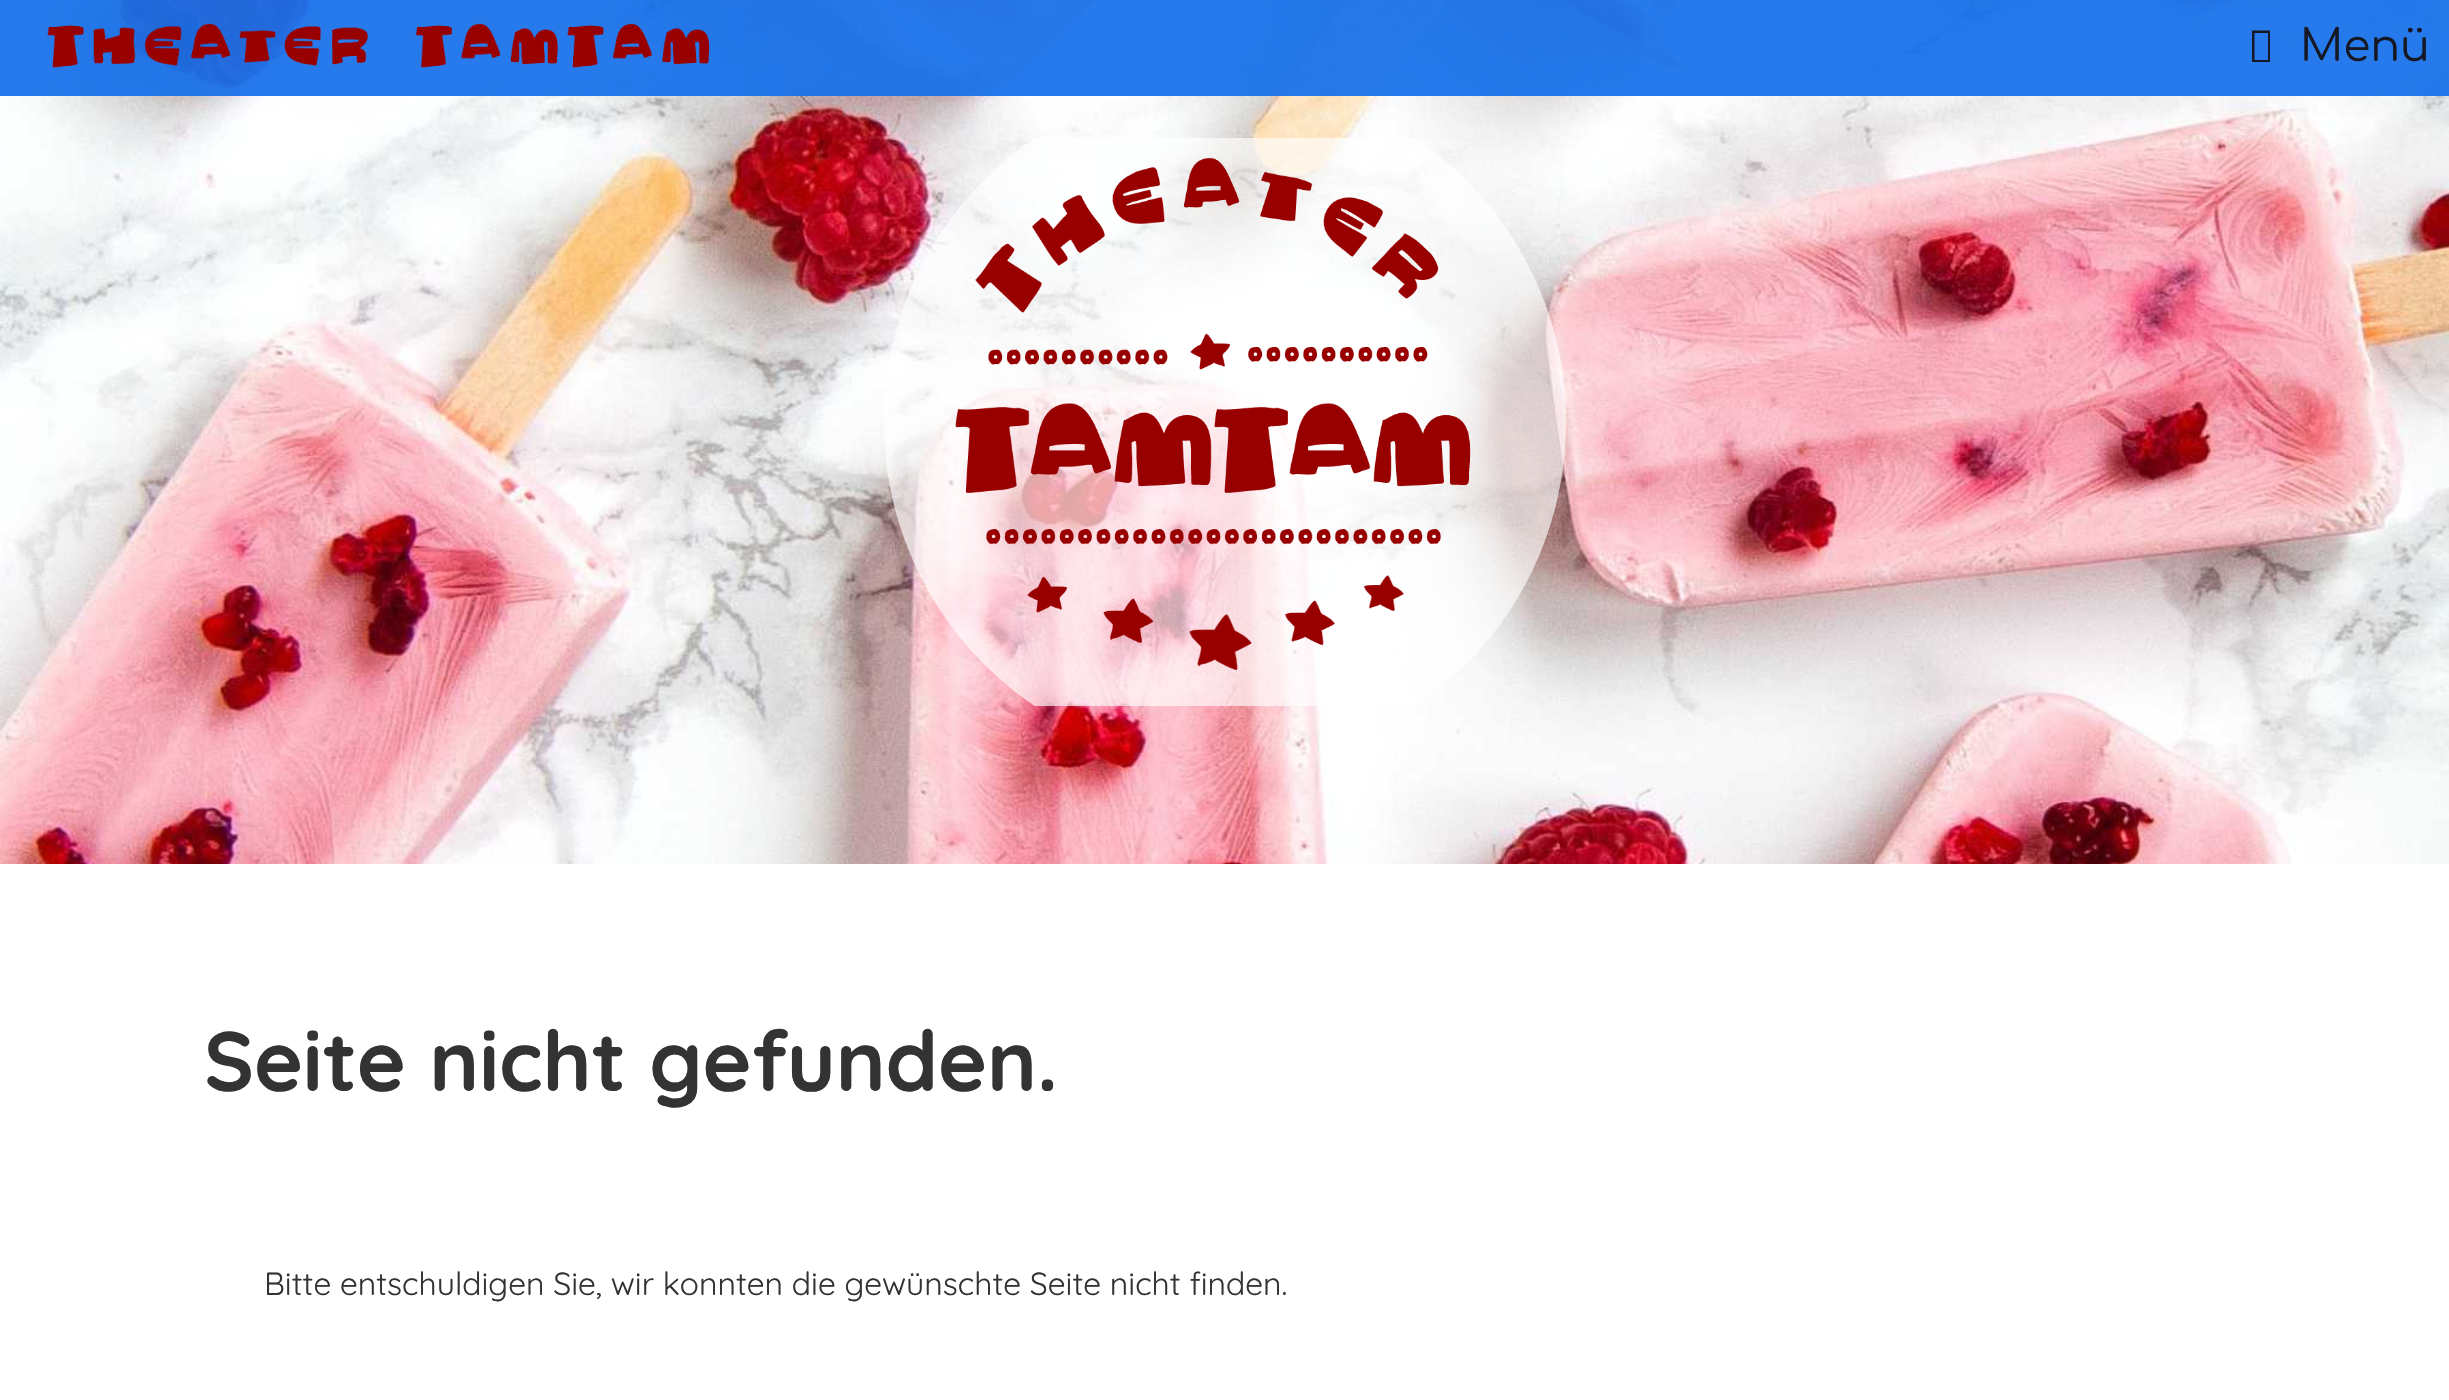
void draw(SkCanvas* canvas) {
    SkPaint paint;
    paint.setAntiAlias(true);
    auto face = [&](const char* family, int weight, float size, bool italic = false) {
        SkFontStyle style(weight, SkFontStyle::kNormal_Width,
            italic ? SkFontStyle::kItalic_Slant : SkFontStyle::kUpright_Slant);
        SkFont result(fontMgr->matchFamilyStyle(family, style), size);
        result.setSubpixel(true);
        return result;
    };
    auto write = [&](const char* s, float x, float y, const SkFont& font, SkColor color) {
        SkPaint ink(SkColor4f::FromColor(color));
        ink.setAntiAlias(true);
        canvas->drawString(s, x, y, font, ink);
    };
    auto block = [&](float x, float y, float w, float h, SkColor color) {
        SkPaint ink(SkColor4f::FromColor(color));
        ink.setAntiAlias(true);
        canvas->drawRect(SkRect::MakeXYWH(x, y, w, h), ink);
    };
    auto paste = [&](const char* path, float x, float y, float w, float h) {
        auto image = SkImages::DeferredFromEncodedData(SkData::MakeFromFileName(path));
        canvas->drawImageRect(image, SkRect::MakeXYWH(x, y, w, h), SkSamplingOptions());
    };
    canvas->clear(SK_ColorWHITE);
    paste("pic2.png", 0, 0, 2449, 864);
    block(0, 0, 2449, 96, SkColorSetARGB(237, 22, 112, 233));
    paste("pic1.png", 47, 23, 663, 45);
    paint.setColor(SkColorSetRGB(22, 25, 37));
    canvas->drawPath(SkPathBuilder().moveTo(2252, 62).lineTo(2252, 30.5f).lineTo(2270, 30.5f).lineTo(2270, 62).close().moveTo(2254.5f, 60).lineTo(2268, 60).lineTo(2268, 33).lineTo(2254.5f, 33).close().detach(), paint);
    auto kFont1 = face("Comfortaa", 400, 44);
    write("Menü", 2300, 61, kFont1, SkColorSetRGB(22, 25, 37));
    paste("pic3.png", 884, 138, 682, 568);
    auto kFont2 = face("Quicksand", 300, 84);
    write("Seite nicht gefunden.", 204, 1091, kFont2, SkColorSetRGB(51, 51, 51));
    auto kFont3 = face("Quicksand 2", 300, 32);
    write("Bitte entschuldigen Sie, wir konnten die gewünschte Seite nicht finden.", 264, 1295, kFont3, SkColorSetRGB(51, 51, 51));
}
